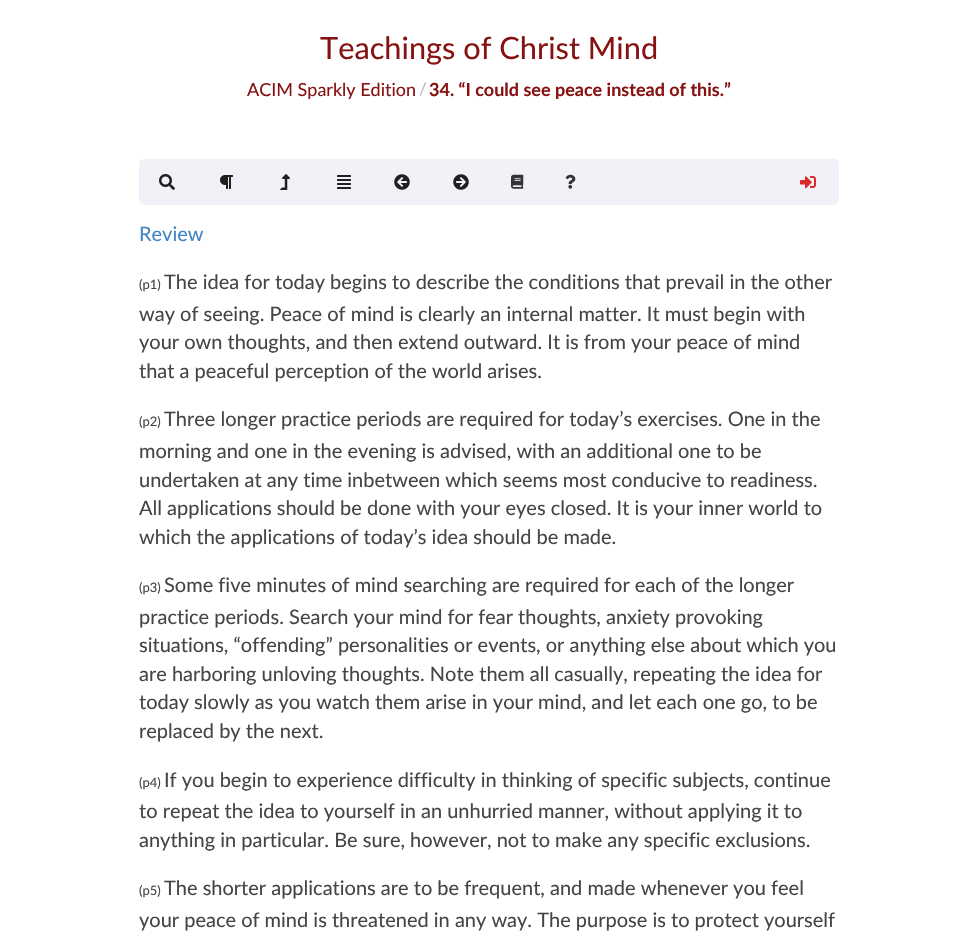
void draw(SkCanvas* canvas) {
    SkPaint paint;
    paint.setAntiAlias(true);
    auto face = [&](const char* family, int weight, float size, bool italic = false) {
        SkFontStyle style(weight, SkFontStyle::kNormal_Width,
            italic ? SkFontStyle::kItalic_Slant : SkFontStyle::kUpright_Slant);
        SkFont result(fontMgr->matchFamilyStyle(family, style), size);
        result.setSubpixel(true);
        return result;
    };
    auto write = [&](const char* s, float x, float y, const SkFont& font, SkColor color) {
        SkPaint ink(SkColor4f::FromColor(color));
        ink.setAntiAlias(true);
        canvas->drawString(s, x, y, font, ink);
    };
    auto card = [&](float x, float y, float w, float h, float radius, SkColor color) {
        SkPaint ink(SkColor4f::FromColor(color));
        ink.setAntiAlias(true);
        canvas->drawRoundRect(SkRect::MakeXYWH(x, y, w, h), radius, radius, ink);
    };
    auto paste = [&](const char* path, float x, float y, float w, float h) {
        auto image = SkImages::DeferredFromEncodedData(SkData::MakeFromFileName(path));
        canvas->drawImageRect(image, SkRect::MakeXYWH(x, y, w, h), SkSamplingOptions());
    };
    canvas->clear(SK_ColorWHITE);
    auto kFont1 = face("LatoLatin", 400, 30.75f);
    write("Teachings of Christ Mind", 320, 59, kFont1, SkColorSetRGB(135, 18, 18));
    auto kFont2 = face("LatoLatin", 400, 18);
    write("ACIM Sparkly Edition", 247, 96, kFont2, SkColorSetRGB(135, 18, 18));
    auto kFont3 = face("LatoLatin", 400, 17);
    write("/", 419, 95, kFont3, SkColorSetRGB(184, 184, 184));
    auto kFont4 = face("LatoLatin", 700, 18);
    write("34. “I could see peace instead of this.”", 429, 96, kFont4, SkColorSetRGB(135, 18, 18));
    card(139, 159, 700, 46, 5, SkColorSetRGB(241, 241, 247));
    paste("pic1.png", 159, 174, 16, 16);
    paste("pic2.png", 220, 175, 13, 14);
    paste("pic3.png", 280, 174, 10, 16);
    paste("pic4.png", 337, 175, 14, 14);
    paste("pic5.png", 394, 174, 16, 16);
    paste("pic6.png", 453, 174, 16, 16);
    paste("pic7.png", 511, 174, 13, 15);
    paste("pic8.png", 565, 174, 11, 15);
    paste("pic9.png", 800, 176, 16, 13);
    auto kFont5 = face("LatoLatin", 400, 20);
    write("Review", 139, 241, kFont5, SkColorSetRGB(65, 131, 196));
    auto kFont6 = face("LatoLatin", 400, 13);
    write("(p1)", 139, 289, kFont6, SkColorSetRGB(69, 69, 69));
    write("The idea for today begins to describe the conditions that prevail in the other", 164, 289, kFont5, SkColorSetRGB(69, 69, 69));
    write("way of seeing. Peace of mind is clearly an internal matter. It must begin with", 139, 321, kFont5, SkColorSetRGB(69, 69, 69));
    write("your own thoughts, and then extend outward. It is from your peace of mind", 139, 349, kFont5, SkColorSetRGB(69, 69, 69));
    write("that a peaceful perception of the world arises.", 139, 378, kFont5, SkColorSetRGB(69, 69, 69));
    write("(p2)", 139, 426, kFont6, SkColorSetRGB(69, 69, 69));
    write("Three longer practice periods are required for today’s exercises. One in the", 164, 426, kFont5, SkColorSetRGB(69, 69, 69));
    write("morning and one in the evening is advised, with an additional one to be", 139, 458, kFont5, SkColorSetRGB(69, 69, 69));
    write("undertaken at any time inbetween which seems most conducive to readiness.", 139, 487, kFont5, SkColorSetRGB(69, 69, 69));
    write("All applications should be done with your eyes closed. It is your inner world to", 139, 515, kFont5, SkColorSetRGB(69, 69, 69));
    write("which the applications of today’s idea should be made.", 139, 544, kFont5, SkColorSetRGB(69, 69, 69));
    write("(p3)", 139, 592, kFont6, SkColorSetRGB(69, 69, 69));
    write("Some five minutes of mind searching are required for each of the longer", 164, 592, kFont5, SkColorSetRGB(69, 69, 69));
    write("practice periods. Search your mind for fear thoughts, anxiety provoking", 139, 624, kFont5, SkColorSetRGB(69, 69, 69));
    write("situations, “offending” personalities or events, or anything else about which you", 139, 652, kFont5, SkColorSetRGB(69, 69, 69));
    write("are harboring unloving thoughts. Note them all casually, repeating the idea for", 139, 681, kFont5, SkColorSetRGB(69, 69, 69));
    write("today slowly as you watch them arise in your mind, and let each one go, to be", 139, 709, kFont5, SkColorSetRGB(69, 69, 69));
    write("replaced by the next.", 139, 738, kFont5, SkColorSetRGB(69, 69, 69));
    write("(p4)", 139, 787, kFont6, SkColorSetRGB(69, 69, 69));
    write("If you begin to experience difficulty in thinking of specific subjects, continue", 164, 787, kFont5, SkColorSetRGB(69, 69, 69));
    write("to repeat the idea to yourself in an unhurried manner, without applying it to", 139, 818, kFont5, SkColorSetRGB(69, 69, 69));
    write("anything in particular. Be sure, however, not to make any specific exclusions.", 139, 847, kFont5, SkColorSetRGB(69, 69, 69));
    write("(p5)", 139, 895, kFont6, SkColorSetRGB(69, 69, 69));
    write("The shorter applications are to be frequent, and made whenever you feel", 164, 895, kFont5, SkColorSetRGB(69, 69, 69));
    write("your peace of mind is threatened in any way. The purpose is to protect yourself", 139, 927, kFont5, SkColorSetRGB(69, 69, 69));
}
